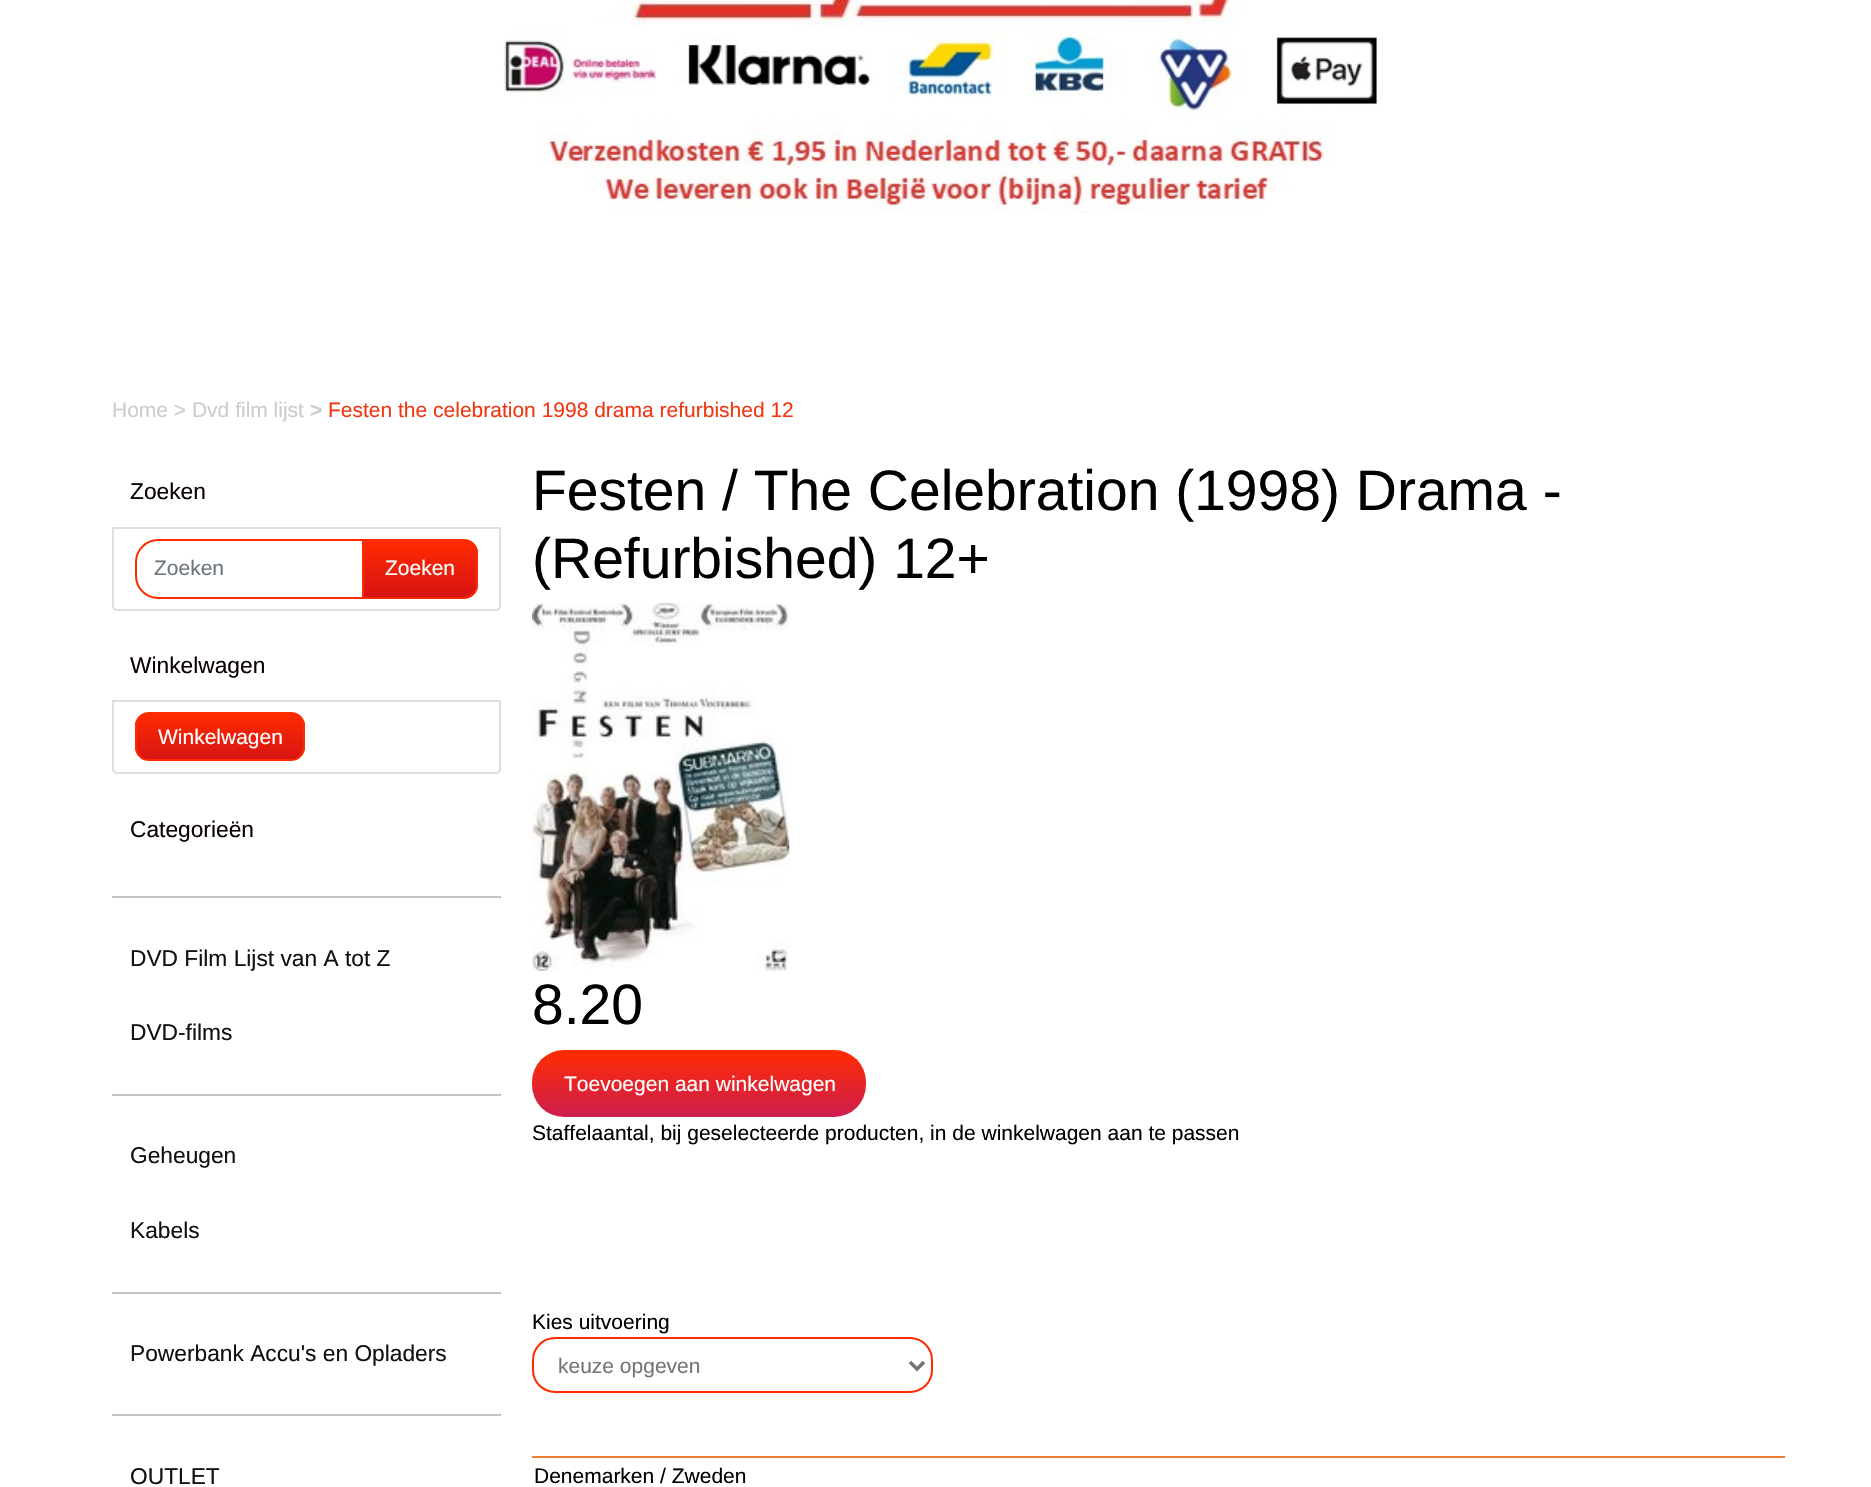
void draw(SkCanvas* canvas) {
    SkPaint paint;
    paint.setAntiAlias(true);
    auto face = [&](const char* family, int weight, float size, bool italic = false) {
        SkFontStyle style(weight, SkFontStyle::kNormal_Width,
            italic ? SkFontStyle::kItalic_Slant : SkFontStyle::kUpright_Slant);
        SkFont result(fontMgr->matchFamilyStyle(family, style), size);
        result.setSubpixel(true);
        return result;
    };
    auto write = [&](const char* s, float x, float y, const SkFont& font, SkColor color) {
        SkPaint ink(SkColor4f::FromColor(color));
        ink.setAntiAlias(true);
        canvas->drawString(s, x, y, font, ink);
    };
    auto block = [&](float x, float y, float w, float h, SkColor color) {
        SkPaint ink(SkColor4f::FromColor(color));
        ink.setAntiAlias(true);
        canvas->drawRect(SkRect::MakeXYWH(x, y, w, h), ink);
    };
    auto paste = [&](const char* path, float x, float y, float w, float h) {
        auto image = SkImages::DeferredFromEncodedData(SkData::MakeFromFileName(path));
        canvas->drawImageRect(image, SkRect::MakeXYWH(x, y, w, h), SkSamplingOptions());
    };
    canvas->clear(SK_ColorWHITE);
    paste("pic1.png", 503, 0, 878, 214);
    auto kFont1 = face("Liberation Sans", 400, 21);
    write("Home > Dvd film lijst", 112, 417, kFont1, SkColorSetRGB(204, 204, 204));
    auto kFont2 = face("Liberation Sans", 700, 21);
    write(">", 310, 417, kFont2, SkColorSetRGB(204, 204, 204));
    write("Festen the celebration 1998 drama refurbished 12", 328, 417, kFont1, SkColorSetRGB(243, 54, 16));
    auto kFont3 = face("Liberation Sans", 400, 22.75f);
    write("Zoeken", 130, 499, kFont3, SkColorSetRGB(13, 2, 2));
    paint.setStyle(SkPaint::kStroke_Style);
    paint.setStrokeWidth(2);
    paint.setColor(SkColorSetRGB(223, 223, 223));
    canvas->drawPath(SkPathBuilder().moveTo(113, 528).lineTo(500, 528).lineTo(500, 606).cubicTo(500, 608, 498, 610, 496, 610).lineTo(117, 610).cubicTo(115, 610, 113, 608, 113, 606).close().detach(), paint);
    paint.setColor(SkColorSetRGB(255, 43, 0));
    canvas->drawPath(SkPathBuilder().moveTo(158, 540).lineTo(363, 540).lineTo(363, 598).lineTo(158, 598).cubicTo(146, 598, 136, 588, 136, 576).lineTo(136, 562).cubicTo(136, 550, 146, 540, 158, 540).close().detach(), paint);
    write("Zoeken", 154, 575, kFont1, SkColorSetRGB(108, 117, 125));
    canvas->save();
    canvas->clipPath(SkPathBuilder().moveTo(362, 539).lineTo(464, 539).cubicTo(471.5f, 539, 478, 545.5f, 478, 553).lineTo(478, 585).cubicTo(478, 592.5f, 471.5f, 599, 464, 599).lineTo(362, 599).close().detach(), true);
    paint.setStyle(SkPaint::kFill_Style);
    {
        const SkColor colors[] = {SkColorSetRGB(255, 43, 0), SkColorSetRGB(215, 20, 20)};
        const float stops[] = {0, 1};
        const SkPoint ends[] = {{420, 541}, {420, 597}};
        paint.setShader(SkGradientShader::MakeLinear(ends, colors, stops, 2, SkTileMode::kClamp));
        paint.setAlpha(255);
    }
    canvas->drawRect(SkRect::MakeXYWH(364, 541, 114, 56), paint);
    canvas->restore();
    paint.setStyle(SkPaint::kStroke_Style);
    paint.setShader(nullptr);
    paint.setColor(SkColorSetRGB(255, 43, 0));
    canvas->drawPath(SkPathBuilder().moveTo(363, 540).lineTo(464, 540).cubicTo(471, 540, 477, 546, 477, 553).lineTo(477, 585).cubicTo(477, 592, 471, 598, 464, 598).lineTo(363, 598).close().detach(), paint);
    write("Zoeken", 385, 575, kFont1, SK_ColorWHITE);
    write("Winkelwagen", 130, 673, kFont3, SkColorSetRGB(13, 2, 2));
    paint.setColor(SkColorSetRGB(223, 223, 223));
    canvas->drawPath(SkPathBuilder().moveTo(113, 701).lineTo(500, 701).lineTo(500, 769).cubicTo(500, 771, 498, 773, 496, 773).lineTo(117, 773).cubicTo(115, 773, 113, 771, 113, 769).close().detach(), paint);
    canvas->save();
    canvas->clipPath(SkPathBuilder().moveTo(149, 712).lineTo(291, 712).cubicTo(298.5f, 712, 305, 718.5f, 305, 726).lineTo(305, 747).cubicTo(305, 754.5f, 298.5f, 761, 291, 761).lineTo(149, 761).cubicTo(141.5f, 761, 135, 754.5f, 135, 747).lineTo(135, 726).cubicTo(135, 718.5f, 141.5f, 712, 149, 712).close().detach(), true);
    paint.setStyle(SkPaint::kFill_Style);
    {
        const SkColor colors[] = {SkColorSetRGB(255, 43, 0), SkColorSetRGB(215, 20, 20)};
        const float stops[] = {0, 1};
        const SkPoint ends[] = {{220, 714}, {220, 760}};
        paint.setShader(SkGradientShader::MakeLinear(ends, colors, stops, 2, SkTileMode::kClamp));
        paint.setAlpha(255);
    }
    canvas->drawRect(SkRect::MakeXYWH(135, 714, 170, 46), paint);
    canvas->restore();
    paint.setStyle(SkPaint::kStroke_Style);
    paint.setShader(nullptr);
    paint.setColor(SkColorSetRGB(255, 43, 0));
    canvas->drawRoundRect(SkRect::MakeXYWH(136, 713, 168, 47), 13, 13, paint);
    write("Winkelwagen", 158, 744, kFont1, SK_ColorWHITE);
    write("Categorieën", 130, 837, kFont3, SkColorSetRGB(13, 2, 2));
    block(112, 896, 389, 2, SkColorSetRGB(195, 196, 195));
    write("DVD Film Lijst van A tot Z", 130, 966, kFont3, SkColorSetRGB(16, 18, 16));
    write("DVD-films", 130, 1040, kFont3, SkColorSetRGB(16, 18, 16));
    block(112, 1094, 389, 2, SkColorSetRGB(195, 196, 195));
    write("Geheugen", 130, 1163, kFont3, SkColorSetRGB(16, 18, 16));
    write("Kabels", 130, 1238, kFont3, SkColorSetRGB(16, 18, 16));
    block(112, 1292, 389, 2, SkColorSetRGB(195, 196, 195));
    write("Powerbank Accu's en Opladers", 130, 1361, kFont3, SkColorSetRGB(16, 18, 16));
    block(112, 1414, 389, 2, SkColorSetRGB(195, 196, 195));
    write("OUTLET", 130, 1484, kFont3, SkColorSetRGB(16, 18, 16));
    auto kFont4 = face("Liberation Sans", 400, 57);
    write("Festen / The Celebration (1998) Drama -", 532, 510, kFont4, SK_ColorBLACK);
    write("(Refurbished) 12+", 532, 578, kFont4, SK_ColorBLACK);
    paste("pic2.png", 532, 603, 258, 368);
    write("8.20", 532, 1024, kFont4, SK_ColorBLACK);
    paint.setStyle(SkPaint::kFill_Style);
    {
        const SkColor colors[] = {SkColorSetRGB(255, 43, 0), SkColorSetRGB(206, 30, 80)};
        const float stops[] = {0, 1};
        const SkPoint ends[] = {{699, 1050}, {699, 1117}};
        paint.setShader(SkGradientShader::MakeLinear(ends, colors, stops, 2, SkTileMode::kClamp));
        paint.setAlpha(255);
    }
    canvas->drawRoundRect(SkRect::MakeXYWH(532, 1050, 334, 67), 32, 32, paint);
    write("Toevoegen aan winkelwagen", 564, 1091, kFont1, SK_ColorWHITE);
    write("Staffelaantal, bij geselecteerde producten, in de winkelwagen aan te passen", 532, 1140, kFont1, SK_ColorBLACK);
    write("Kies uitvoering", 532, 1329, kFont1, SK_ColorBLACK);
    paint.setStyle(SkPaint::kStroke_Style);
    paint.setShader(nullptr);
    paint.setColor(SkColorSetRGB(255, 43, 0));
    canvas->drawRoundRect(SkRect::MakeXYWH(533, 1338, 399, 54), 22, 22, paint);
    paint.setStrokeWidth(3.5f);
    paint.setColor(SkColorSetRGB(117, 116, 116));
    canvas->drawPath(SkPathBuilder().moveTo(910, 1362).lineTo(917, 1369).lineTo(924, 1362).detach(), paint);
    write("keuze opgeven", 558, 1373, kFont1, SkColorSetRGB(117, 116, 116));
    block(532, 1456, 1253, 2, SkColorSetRGB(237, 125, 49));
    write("Denemarken / Zweden", 534, 1483, kFont1, SK_ColorBLACK);
}
